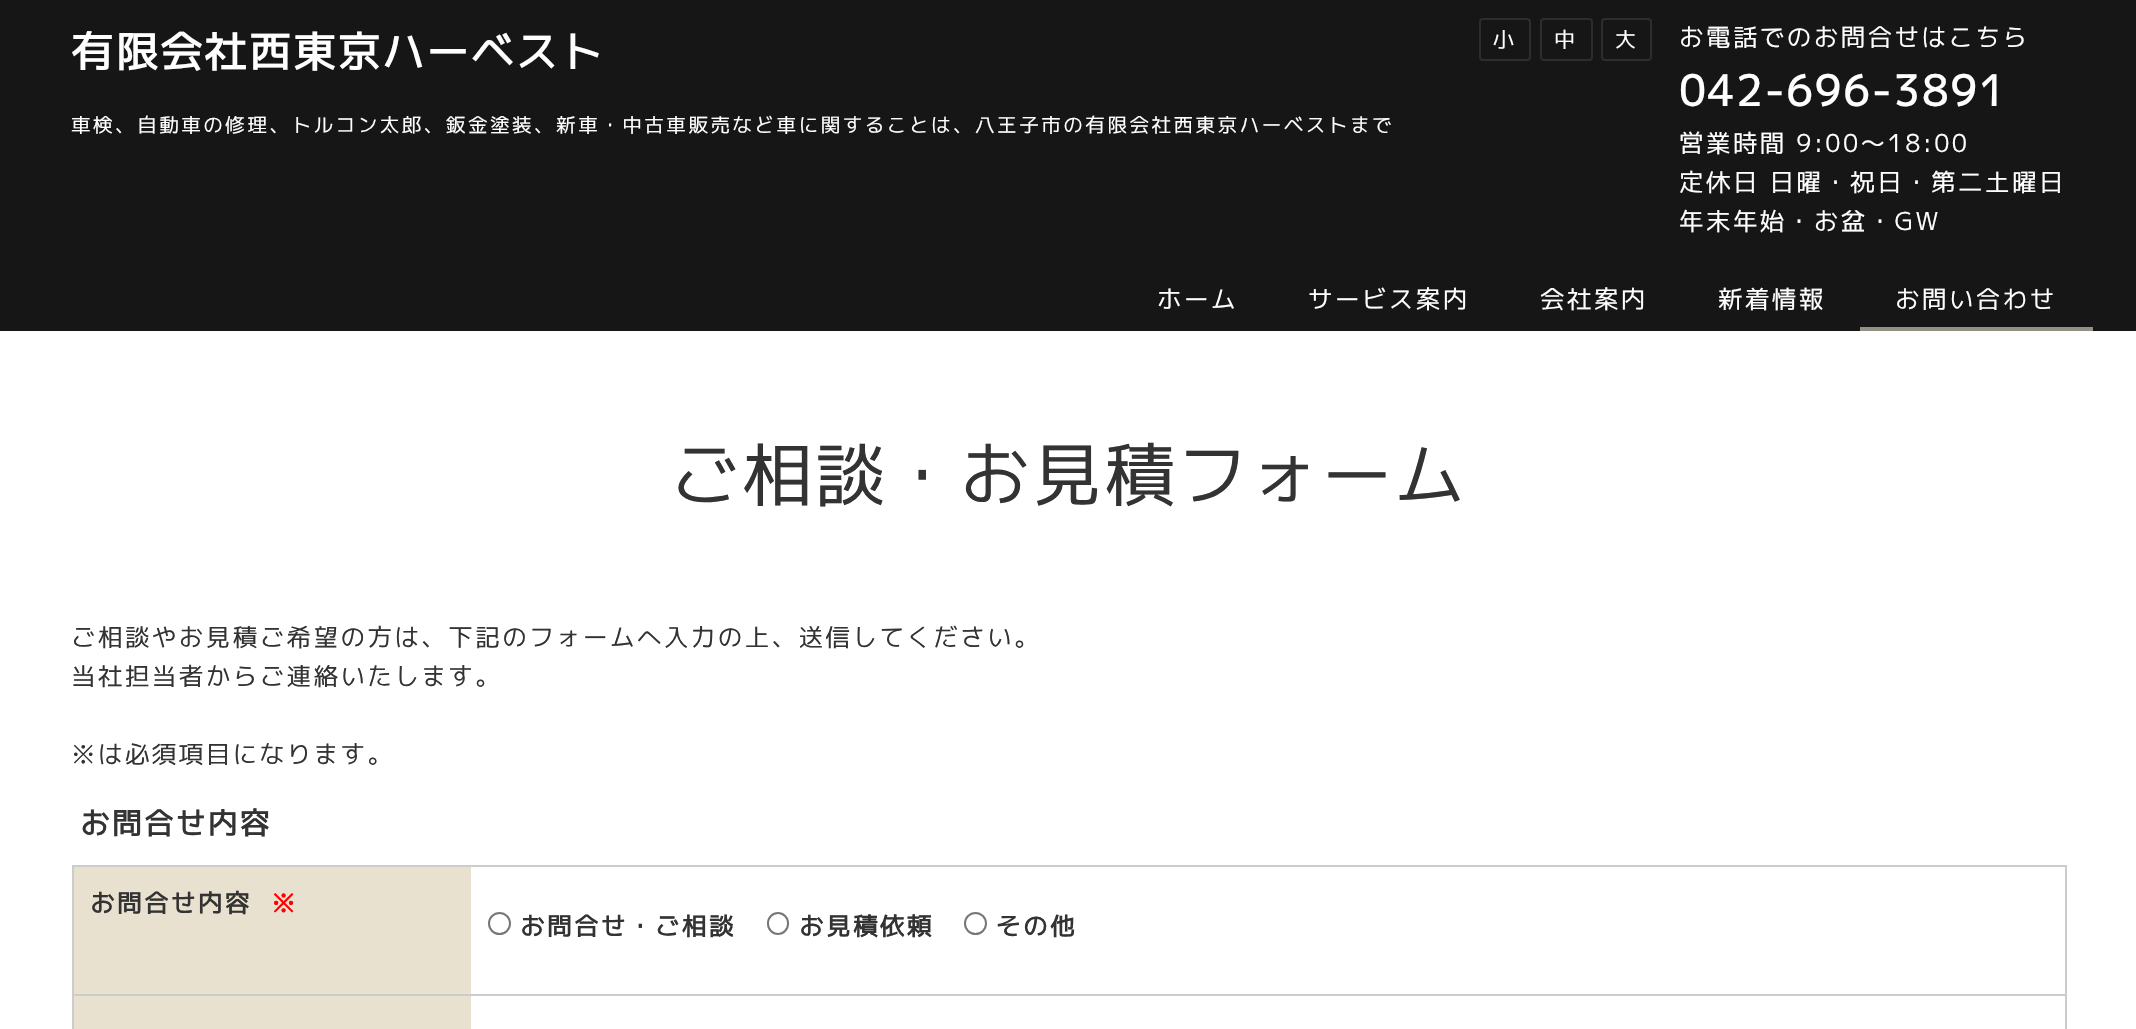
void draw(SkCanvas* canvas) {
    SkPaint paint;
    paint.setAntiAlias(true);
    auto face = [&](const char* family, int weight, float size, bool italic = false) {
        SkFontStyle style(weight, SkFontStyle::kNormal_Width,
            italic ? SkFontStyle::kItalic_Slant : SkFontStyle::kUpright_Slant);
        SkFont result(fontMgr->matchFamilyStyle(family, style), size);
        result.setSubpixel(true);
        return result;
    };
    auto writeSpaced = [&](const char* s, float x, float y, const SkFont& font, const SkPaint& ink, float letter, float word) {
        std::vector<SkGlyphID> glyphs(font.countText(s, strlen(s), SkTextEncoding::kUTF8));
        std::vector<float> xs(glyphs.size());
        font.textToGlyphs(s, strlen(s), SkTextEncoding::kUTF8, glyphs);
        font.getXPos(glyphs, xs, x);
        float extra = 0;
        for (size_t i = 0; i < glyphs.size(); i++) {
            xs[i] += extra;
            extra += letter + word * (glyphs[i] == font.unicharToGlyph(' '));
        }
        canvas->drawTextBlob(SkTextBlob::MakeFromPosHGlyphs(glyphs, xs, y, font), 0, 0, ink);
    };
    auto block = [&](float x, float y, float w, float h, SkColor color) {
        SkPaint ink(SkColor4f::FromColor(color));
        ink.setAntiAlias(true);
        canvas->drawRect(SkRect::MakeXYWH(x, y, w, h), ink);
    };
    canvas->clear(SK_ColorWHITE);
    block(0, 0, 2136, 331, SkColorSetRGB(22, 22, 22));
    auto kFont1 = face("M PLUS 1p", 700, 42);
    paint.setColor(SK_ColorWHITE);
    writeSpaced("有限会社西東京ハーベスト", 71, 67, kFont1, paint, 2.45f, 0);
    auto kFont2 = face("M PLUS 1p", 400, 19.6f);
    writeSpaced("車検、自動車の修理、トルコン太郎、鈑金塗装、新車・中古車販売など車に関することは、八王子市の有限会社西東京ハーベストまで", 71, 132, kFont2, paint, 2.45f, 0);
    paint.setStyle(SkPaint::kStroke_Style);
    paint.setStrokeWidth(2);
    paint.setColor(SkColorSetRGB(45, 45, 45));
    canvas->drawRoundRect(SkRect::MakeXYWH(1480, 19, 50, 41), 3, 3, paint);
    auto kFont3 = face("M PLUS 1p", 400, 21);
    paint.setStyle(SkPaint::kFill_Style);
    paint.setColor(SK_ColorWHITE);
    writeSpaced("小", 1493, 47, kFont3, paint, 2.45f, 0);
    paint.setStyle(SkPaint::kStroke_Style);
    paint.setColor(SkColorSetRGB(45, 45, 45));
    canvas->drawRoundRect(SkRect::MakeXYWH(1541, 19, 51, 41), 3, 3, paint);
    paint.setStyle(SkPaint::kFill_Style);
    paint.setColor(SK_ColorWHITE);
    writeSpaced("中", 1554, 47, kFont3, paint, 2.45f, 0);
    paint.setStyle(SkPaint::kStroke_Style);
    paint.setColor(SkColorSetRGB(45, 45, 45));
    canvas->drawRoundRect(SkRect::MakeXYWH(1602, 19, 49, 41), 3, 3, paint);
    paint.setStyle(SkPaint::kFill_Style);
    paint.setColor(SK_ColorWHITE);
    writeSpaced("大", 1615, 47, kFont3, paint, 2.45f, 0);
    auto kFont4 = face("M PLUS 1p", 400, 24.5f);
    writeSpaced("お電話でのお問合せはこちら", 1679, 46, kFont4, paint, 2.45f, 0);
    writeSpaced("042-696-3891", 1679, 106, kFont1, paint, 2.45f, 0);
    writeSpaced("営業時間 9:00～18:00", 1679, 152, kFont4, paint, 2.45f, 0);
    writeSpaced("定休日 日曜・祝日・第二土曜日", 1679, 191, kFont4, paint, 2.45f, 0);
    writeSpaced("年末年始・お盆・GW", 1679, 230, kFont4, paint, 2.45f, 0);
    writeSpaced("ホーム", 1157, 308, kFont4, paint, 2.45f, 0);
    writeSpaced("サービス案内", 1308, 308, kFont4, paint, 2.45f, 0);
    writeSpaced("会社案内", 1540, 308, kFont4, paint, 2.45f, 0);
    writeSpaced("新着情報", 1718, 308, kFont4, paint, 2.45f, 0);
    writeSpaced("お問い合わせ", 1895, 308, kFont4, paint, 2.45f, 0);
    block(1860, 327, 233, 4, SkColorSetRGB(149, 144, 134));
    auto kFont5 = face("M PLUS 1p", 400, 70);
    paint.setColor(SkColorSetRGB(51, 51, 51));
    writeSpaced("ご相談・お見積フォーム", 670, 500, kFont5, paint, 2.45f, 0);
    writeSpaced("ご相談やお見積ご希望の方は、下記のフォームへ入力の上、送信してください。", 71, 646, kFont4, paint, 2.45f, 0);
    writeSpaced("当社担当者からご連絡いたします。", 71, 685, kFont4, paint, 2.45f, 0);
    writeSpaced("※は必須項目になります。", 71, 763, kFont4, paint, 2.45f, 0);
    auto kFont6 = face("M PLUS 1p", 700, 29.5f);
    writeSpaced("お問合せ内容", 80, 834, kFont6, paint, 2.45f, 0);
    block(74, 867, 397, 127, SkColorSetRGB(233, 225, 208));
    block(72, 865, 1995, 2, SkColorSetRGB(204, 204, 204));
    block(72, 994, 1995, 2, SkColorSetRGB(204, 204, 204));
    block(72, 994, 2, 35, SkColorSetRGB(204, 204, 204));
    block(72, 865, 2, 131, SkColorSetRGB(204, 204, 204));
    auto kFont7 = face("M PLUS 1p", 700, 24.5f);
    writeSpaced("お問合せ内容", 90, 912, kFont7, paint, 2.45f, 0);
    paint.setColor(SkColorSetRGB(255, 0, 0));
    writeSpaced("※", 271, 912, kFont7, paint, 2.45f, 0);
    block(2065, 994, 2, 35, SkColorSetRGB(204, 204, 204));
    block(2065, 865, 2, 131, SkColorSetRGB(204, 204, 204));
    paint.setStyle(SkPaint::kStroke_Style);
    paint.setColor(SkColorSetRGB(118, 118, 118));
    canvas->drawCircle(499.5f, 923.5f, 10.5f, paint);
    paint.setStyle(SkPaint::kFill_Style);
    paint.setColor(SkColorSetRGB(51, 51, 51));
    writeSpaced("お問合せ・ご相談", 520, 935, kFont7, paint, 2.45f, 0);
    paint.setStyle(SkPaint::kStroke_Style);
    paint.setColor(SkColorSetRGB(118, 118, 118));
    canvas->drawRoundRect(SkRect::MakeXYWH(768, 913, 20, 21), 10, 10, paint);
    paint.setStyle(SkPaint::kFill_Style);
    paint.setColor(SkColorSetRGB(51, 51, 51));
    writeSpaced("お見積依頼", 799, 935, kFont7, paint, 2.45f, 0);
    paint.setStyle(SkPaint::kStroke_Style);
    paint.setColor(SkColorSetRGB(118, 118, 118));
    canvas->drawCircle(975.5f, 923.5f, 10.5f, paint);
    paint.setStyle(SkPaint::kFill_Style);
    paint.setColor(SkColorSetRGB(51, 51, 51));
    writeSpaced("その他", 996, 935, kFont7, paint, 2.45f, 0);
    block(74, 996, 397, 33, SkColorSetRGB(233, 225, 208));
}
